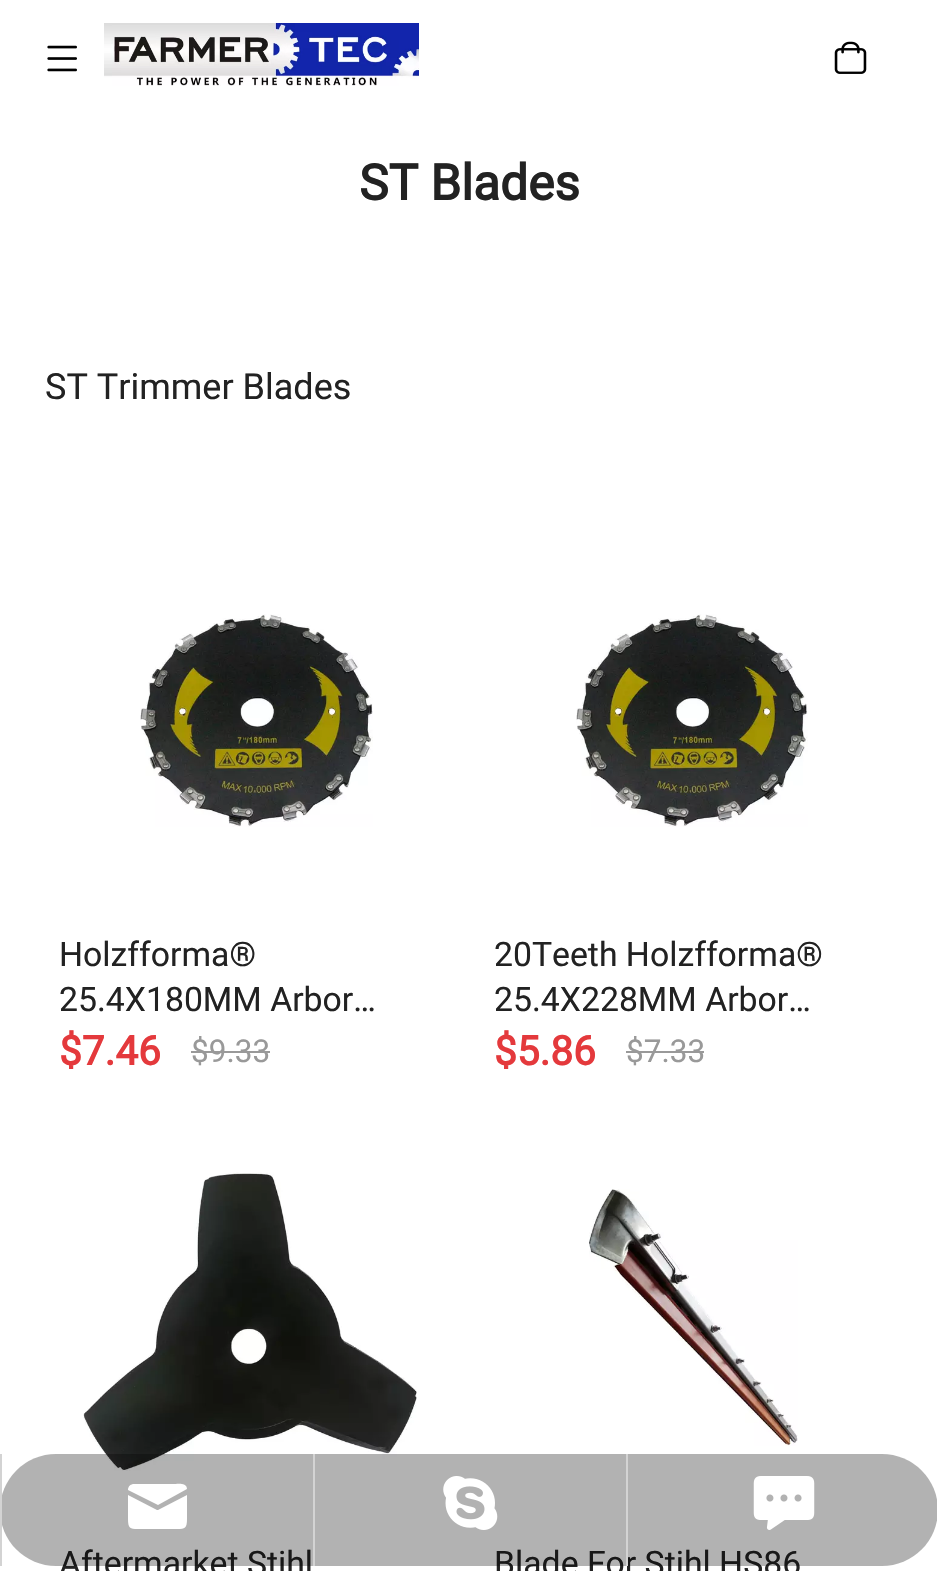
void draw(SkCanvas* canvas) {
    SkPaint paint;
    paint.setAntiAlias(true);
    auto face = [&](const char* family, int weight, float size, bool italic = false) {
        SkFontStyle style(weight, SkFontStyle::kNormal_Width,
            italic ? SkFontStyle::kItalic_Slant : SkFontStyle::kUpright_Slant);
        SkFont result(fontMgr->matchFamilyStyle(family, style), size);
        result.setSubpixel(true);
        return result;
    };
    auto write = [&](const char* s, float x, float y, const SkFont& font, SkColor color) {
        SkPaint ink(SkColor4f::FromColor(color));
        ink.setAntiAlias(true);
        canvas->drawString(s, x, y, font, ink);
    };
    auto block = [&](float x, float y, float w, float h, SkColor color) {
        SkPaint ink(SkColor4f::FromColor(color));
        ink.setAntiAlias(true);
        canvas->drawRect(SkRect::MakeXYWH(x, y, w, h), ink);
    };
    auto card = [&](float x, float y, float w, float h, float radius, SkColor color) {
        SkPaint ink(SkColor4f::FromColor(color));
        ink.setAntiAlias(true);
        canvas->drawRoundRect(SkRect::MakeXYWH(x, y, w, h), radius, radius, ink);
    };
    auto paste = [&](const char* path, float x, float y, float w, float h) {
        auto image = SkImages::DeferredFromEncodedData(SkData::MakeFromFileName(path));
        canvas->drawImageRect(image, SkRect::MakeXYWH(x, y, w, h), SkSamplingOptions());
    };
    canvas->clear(SK_ColorWHITE);
    paste("pic1.png", 47, 45, 30, 27);
    paste("pic2.png", 104, 23, 315, 63);
    paste("pic3.png", 834, 41, 33, 33);
    auto kFont1 = face("Roboto", 700, 49.5f);
    write("ST Blades", 359, 200, kFont1, SkColorSetRGB(34, 34, 34));
    auto kFont2 = face("Roboto", 400, 36);
    write("ST Trimmer Blades", 45, 399, kFont2, SkColorSetRGB(34, 34, 34));
    paste("pic4.png", 140, 614, 233, 213);
    auto kFont3 = face("Roboto", 400, 33.75f);
    write("Holzfforma®", 59, 966, kFont3, SkColorSetRGB(34, 34, 34));
    write("25.4X180MM Arbor…", 59, 1011, kFont3, SkColorSetRGB(34, 34, 34));
    auto kFont4 = face("Roboto", 700, 40.5f);
    write("$7.46", 59, 1065, kFont4, SkColorSetRGB(228, 57, 60));
    auto kFont5 = face("Roboto", 400, 31.5f);
    write("$9.33", 191, 1062, kFont5, SkColorSetRGB(153, 153, 153));
    block(191, 1051, 79, 2, SkColorSetRGB(153, 153, 153));
    paste("pic5.png", 576, 614, 232, 213);
    write("20Teeth Holzfforma®", 494, 966, kFont3, SkColorSetRGB(34, 34, 34));
    write("25.4X228MM Arbor…", 494, 1011, kFont3, SkColorSetRGB(34, 34, 34));
    write("$5.86", 494, 1065, kFont4, SkColorSetRGB(228, 57, 60));
    write("$7.33", 626, 1062, kFont5, SkColorSetRGB(153, 153, 153));
    block(626, 1051, 78, 2, SkColorSetRGB(153, 153, 153));
    paste("pic6.png", 83, 1172, 334, 299);
    write("Aftermarket Stihl", 59, 1575, kFont3, SkColorSetRGB(34, 34, 34));
    paste("pic7.png", 589, 1189, 209, 257);
    write("Blade For Stihl HS86", 494, 1575, kFont3, SkColorSetRGB(34, 34, 34));
    card(0, 1454, 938, 112, 56, SkColorSetARGB(77, 0, 0, 0));
    block(0, 1454, 2, 112, SkColorSetRGB(211, 211, 211));
    paint.setColor(SK_ColorWHITE);
    canvas->drawPath(SkPathBuilder().moveTo(134, 1484).lineTo(173, 1484).cubicTo(177, 1484, 187, 1482, 187, 1489).lineTo(158, 1505).lineTo(128, 1490).cubicTo(128, 1486, 131, 1484, 134, 1484).close().moveTo(128, 1495).lineTo(128, 1519).cubicTo(128, 1530, 131, 1529, 142, 1529).lineTo(173, 1529).cubicTo(184, 1529, 187, 1530, 187, 1519).lineTo(187, 1495).lineTo(158, 1510).lineTo(157, 1510).close().detach(), paint);
    block(313, 1454, 2, 112, SkColorSetRGB(211, 211, 211));
    paste("pic8.png", 443, 1476, 55, 54);
    block(626, 1454, 2, 112, SkColorSetRGB(211, 211, 211));
    paste("pic9.png", 753, 1476, 62, 54);
}
